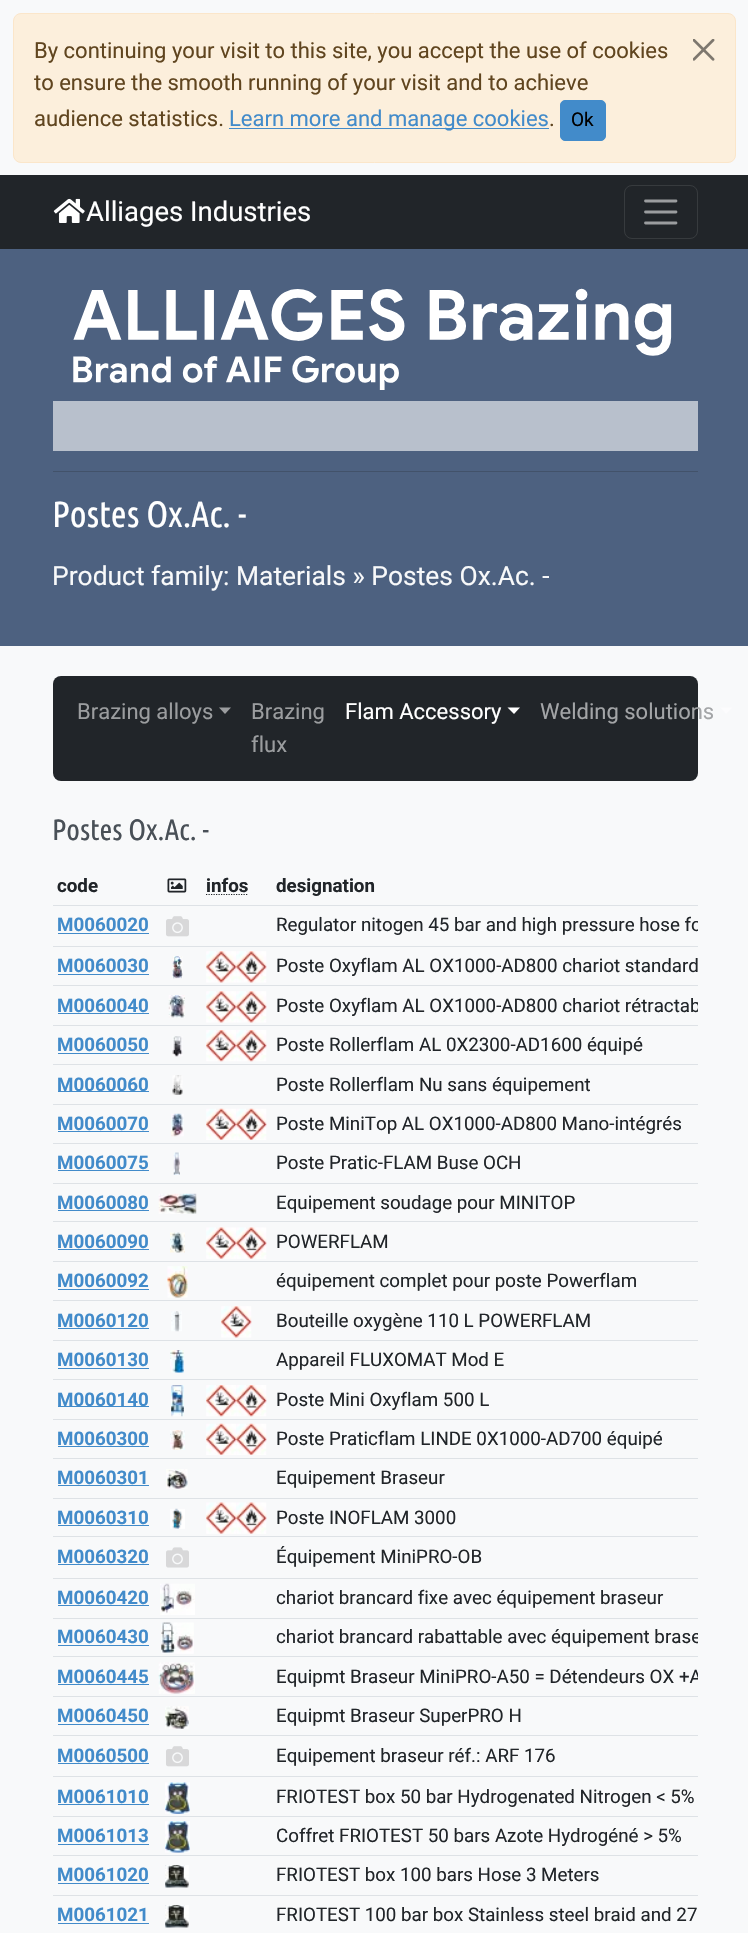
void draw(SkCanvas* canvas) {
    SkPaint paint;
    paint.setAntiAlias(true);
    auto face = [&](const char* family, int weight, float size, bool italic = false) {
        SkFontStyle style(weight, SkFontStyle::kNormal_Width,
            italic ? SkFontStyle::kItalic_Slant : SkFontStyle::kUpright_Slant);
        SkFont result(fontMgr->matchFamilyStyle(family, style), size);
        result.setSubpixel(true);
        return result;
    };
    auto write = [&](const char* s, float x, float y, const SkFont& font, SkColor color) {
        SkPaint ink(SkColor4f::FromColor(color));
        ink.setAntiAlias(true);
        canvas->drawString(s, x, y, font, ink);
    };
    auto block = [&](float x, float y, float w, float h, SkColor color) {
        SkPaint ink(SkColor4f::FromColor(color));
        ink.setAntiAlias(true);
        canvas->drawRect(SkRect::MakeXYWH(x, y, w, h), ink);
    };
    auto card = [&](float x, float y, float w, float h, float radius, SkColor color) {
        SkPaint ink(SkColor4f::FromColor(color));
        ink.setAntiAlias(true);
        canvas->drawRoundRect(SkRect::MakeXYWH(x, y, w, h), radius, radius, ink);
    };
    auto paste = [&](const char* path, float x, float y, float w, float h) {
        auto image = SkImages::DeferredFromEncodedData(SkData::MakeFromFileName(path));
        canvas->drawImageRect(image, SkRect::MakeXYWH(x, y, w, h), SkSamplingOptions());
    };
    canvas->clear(SkColorSetRGB(248, 249, 250));
    paint.setColor(SkColorSetRGB(252, 239, 220));
    canvas->drawRoundRect(SkRect::MakeXYWH(13.5f, 13.5f, 722, 149), 7.5f, 7.5f, paint);
    paint.setStyle(SkPaint::kStroke_Style);
    paint.setStrokeWidth(1);
    paint.setColor(SkColorSetRGB(251, 230, 202));
    canvas->drawRoundRect(SkRect::MakeXYWH(13.5f, 13.5f, 722, 149), 7.5f, 7.5f, paint);
    auto kFont1 = face("Roboto", 400, 22);
    write("By continuing your visit to this site, you accept the use of cookies", 34, 58, kFont1, SkColorSetRGB(96, 69, 31));
    paste("pic1.png", 693, 39, 22, 22);
    write("to ensure the smooth running of your visit and to achieve", 34, 90, kFont1, SkColorSetRGB(96, 69, 31));
    write("audience statistics.", 34, 126, kFont1, SkColorSetRGB(96, 69, 31));
    block(229, 128, 320, 1, SkColorSetRGB(66, 139, 202));
    write("Learn more and manage cookies", 229, 126, kFont1, SkColorSetRGB(66, 139, 202));
    write(".", 549, 126, kFont1, SkColorSetRGB(96, 69, 31));
    paint.setStyle(SkPaint::kFill_Style);
    paint.setColor(SkColorSetRGB(66, 139, 202));
    canvas->drawRoundRect(SkRect::MakeXYWH(560.5f, 100.5f, 45, 40), 4.5f, 4.5f, paint);
    paint.setStyle(SkPaint::kStroke_Style);
    canvas->drawRoundRect(SkRect::MakeXYWH(560.5f, 100.5f, 45, 40), 4.5f, 4.5f, paint);
    auto kFont2 = face("Roboto", 400, 19);
    write("Ok", 571, 126, kFont2, SK_ColorBLACK);
    block(0, 175, 748, 74, SkColorSetRGB(33, 37, 41));
    paste("pic2.png", 53, 198, 32, 25);
    auto kFont3 = face("Roboto", 400, 27.5f);
    write("Alliages Industries", 86, 221, kFont3, SK_ColorWHITE);
    paint.setColor(SkColorSetRGB(55, 59, 62));
    canvas->drawRoundRect(SkRect::MakeXYWH(624.5f, 185.5f, 73, 53), 7.5f, 7.5f, paint);
    paint.setStrokeWidth(2.8f);
    paint.setStrokeCap(SkPaint::kRound_Cap);
    paint.setColor(SkColorSetRGB(155, 157, 159));
    canvas->drawPath(SkPathBuilder().moveTo(645.5f, 201).lineTo(676, 201).moveTo(645.5f, 212).lineTo(676, 212).moveTo(645.5f, 223).lineTo(676, 223).detach(), paint);
    block(0, 249, 748, 397, SkColorSetRGB(77, 97, 128));
    paste("pic3.png", 73, 288, 599, 102);
    block(53, 401, 645, 50, SkColorSetRGB(184, 192, 204));
    block(53, 471, 645, 1, SkColorSetRGB(66, 82, 106));
    auto kFont4 = face("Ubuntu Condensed", 400, 36.5f);
    write("Postes Ox.Ac. -", 52, 527, kFont4, SK_ColorWHITE);
    auto kFont5 = face("Roboto", 400, 26.4f);
    write("Product family: Materials » Postes Ox.Ac. -", 52, 585, kFont5, SkColorSetRGB(248, 249, 250));
    card(53, 676, 645, 105, 8, SkColorSetRGB(33, 37, 41));
    write("Brazing alloys", 77, 719, kFont1, SkColorSetRGB(155, 157, 159));
    paint.setStyle(SkPaint::kFill_Style);
    canvas->drawPath(SkPathBuilder().moveTo(219, 707.5f).lineTo(231, 707.5f).lineTo(225, 714).close().detach(), paint);
    write("Brazing", 251, 719, kFont1, SkColorSetRGB(155, 157, 159));
    write("flux", 251, 752, kFont1, SkColorSetRGB(155, 157, 159));
    write("Flam Accessory", 345, 719, kFont1, SK_ColorWHITE);
    paint.setColor(SK_ColorWHITE);
    canvas->drawPath(SkPathBuilder().moveTo(507.5f, 707.5f).lineTo(520, 707.5f).lineTo(514, 714).close().detach(), paint);
    write("Welding solutions", 540, 719, kFont1, SkColorSetRGB(163, 165, 167));
    paint.setColor(SkColorSetRGB(252, 252, 253));
    canvas->drawPath(SkPathBuilder().moveTo(720, 707.5f).lineTo(732.5f, 707.5f).lineTo(726, 714).close().detach(), paint);
    auto kFont6 = face("Ubuntu Condensed", 400, 29.5f);
    write("Postes Ox.Ac. -", 52, 840, kFont6, SkColorSetRGB(73, 80, 87));
    auto kFont7 = face("Roboto", 700, 18.75f);
    write("code", 57, 892, kFont7, SkColorSetRGB(33, 37, 41));
    paste("pic4.png", 167, 878, 20, 15);
    write("infos", 206, 892, kFont7, SkColorSetRGB(33, 37, 41));
    paint.setStyle(SkPaint::kStroke_Style);
    paint.setStrokeWidth(1.2f);
    paint.setStrokeCap(SkPaint::kButt_Cap);
    paint.setColor(SkColorSetRGB(33, 37, 41));
    paint.setPathEffect(SkDashPathEffect::Make({{1.25f, 1.25f}}, 0));
    canvas->drawPath(SkPathBuilder().moveTo(206, 894.5f).lineTo(248.5f, 894.5f).detach(), paint);
    paint.setPathEffect(nullptr);
    block(53, 905, 645, 1, SkColorSetRGB(222, 226, 230));
    write("designation", 276, 892, kFont7, SkColorSetRGB(33, 37, 41));
    write("M0060020", 57, 931, kFont7, SkColorSetRGB(66, 139, 202));
    block(58, 933, 91, 1, SkColorSetRGB(66, 139, 202));
    paste("pic5.png", 166, 916, 23, 21);
    block(53, 946, 645, 1, SkColorSetRGB(222, 226, 230));
    canvas->save();
    canvas->clipRect(SkRect::MakeXYWH(53, 868, 645, 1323));
    auto kFont8 = face("Roboto", 400, 18.75f);
    write("Regulator nitogen 45 bar and high pressure hose fo", 276, 931, kFont8, SkColorSetRGB(33, 37, 41));
    canvas->restore();
    write("M0060030", 57, 972, kFont7, SkColorSetRGB(66, 139, 202));
    block(58, 974, 91, 1, SkColorSetRGB(66, 139, 202));
    paste("pic6.png", 172, 956, 11, 23);
    paste("pic7.png", 206, 951, 31, 32);
    paste("pic8.png", 236, 951, 31, 32);
    block(53, 985, 645, 1, SkColorSetRGB(222, 226, 230));
    write("Poste Oxyflam AL OX1000-AD800 chariot standard", 276, 972, kFont8, SkColorSetRGB(33, 37, 41));
    write("M0060040", 57, 1012, kFont7, SkColorSetRGB(66, 139, 202));
    block(58, 1013, 91, 1, SkColorSetRGB(66, 139, 202));
    paste("pic9.png", 168, 995, 17, 23);
    paste("pic7.png", 206, 991, 31, 32);
    paste("pic8.png", 236, 991, 31, 32);
    block(53, 1025, 645, 1, SkColorSetRGB(222, 226, 230));
    canvas->save();
    canvas->clipRect(SkRect::MakeXYWH(53, 868, 645, 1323));
    write("Poste Oxyflam AL OX1000-AD800 chariot rétractab", 276, 1012, kFont8, SkColorSetRGB(33, 37, 41));
    canvas->restore();
    write("M0060050", 57, 1051, kFont7, SkColorSetRGB(66, 139, 202));
    block(58, 1053, 91, 1, SkColorSetRGB(66, 139, 202));
    paste("pic10.png", 172, 1036, 11, 21);
    paste("pic11.png", 206, 1030, 31, 32);
    paste("pic12.png", 236, 1030, 31, 32);
    block(53, 1064, 645, 1, SkColorSetRGB(222, 226, 230));
    write("Poste Rollerflam AL 0X2300-AD1600 équipé", 276, 1051, kFont8, SkColorSetRGB(33, 37, 41));
    block(58, 1091, 91, 1, SkColorSetRGB(66, 139, 202));
    write("M0060060", 57, 1091, kFont7, SkColorSetRGB(66, 139, 202));
    paste("pic13.png", 172, 1075, 11, 20);
    block(53, 1104, 645, 1, SkColorSetRGB(222, 226, 230));
    write("Poste Rollerflam Nu sans équipement", 276, 1091, kFont8, SkColorSetRGB(33, 37, 41));
    write("M0060070", 57, 1130, kFont7, SkColorSetRGB(66, 139, 202));
    block(58, 1131, 91, 1, SkColorSetRGB(66, 139, 202));
    paste("pic14.png", 171, 1113, 13, 24);
    paste("pic15.png", 206, 1108, 31, 32);
    paste("pic16.png", 236, 1108, 31, 32);
    block(53, 1143, 645, 1, SkColorSetRGB(222, 226, 230));
    write("Poste MiniTop AL OX1000-AD800 Mano-intégrés", 276, 1130, kFont8, SkColorSetRGB(33, 37, 41));
    write("M0060075", 57, 1169, kFont7, SkColorSetRGB(66, 139, 202));
    block(58, 1170, 91, 1, SkColorSetRGB(66, 139, 202));
    paste("pic17.png", 173, 1152, 7, 23);
    block(53, 1183, 645, 1, SkColorSetRGB(222, 226, 230));
    write("Poste Pratic-FLAM Buse OCH", 276, 1169, kFont8, SkColorSetRGB(33, 37, 41));
    write("M0060080", 57, 1209, kFont7, SkColorSetRGB(66, 139, 202));
    block(58, 1210, 91, 1, SkColorSetRGB(66, 139, 202));
    paste("pic18.png", 158, 1193, 39, 21);
    block(53, 1221, 645, 1, SkColorSetRGB(222, 226, 230));
    write("Equipement soudage pour MINITOP", 276, 1209, kFont8, SkColorSetRGB(33, 37, 41));
    write("M0060090", 57, 1248, kFont7, SkColorSetRGB(66, 139, 202));
    block(58, 1249, 91, 1, SkColorSetRGB(66, 139, 202));
    paste("pic19.png", 170, 1232, 15, 21);
    paste("pic20.png", 206, 1227, 31, 32);
    paste("pic21.png", 236, 1227, 31, 32);
    block(53, 1261, 645, 1, SkColorSetRGB(222, 226, 230));
    write("POWERFLAM", 276, 1248, kFont8, SkColorSetRGB(33, 37, 41));
    write("M0060092", 57, 1287, kFont7, SkColorSetRGB(66, 139, 202));
    block(58, 1289, 91, 1, SkColorSetRGB(66, 139, 202));
    paste("pic22.png", 167, 1266, 21, 32);
    block(53, 1300, 645, 1, SkColorSetRGB(222, 226, 230));
    write("équipement complet pour poste Powerflam", 276, 1287, kFont8, SkColorSetRGB(33, 37, 41));
    write("M0060120", 57, 1327, kFont7, SkColorSetRGB(66, 139, 202));
    block(58, 1328, 91, 1, SkColorSetRGB(66, 139, 202));
    paste("pic23.png", 171, 1311, 11, 21);
    paste("pic7.png", 221, 1306, 31, 32);
    block(53, 1340, 645, 1, SkColorSetRGB(222, 226, 230));
    write("Bouteille oxygène 110 L POWERFLAM", 276, 1327, kFont8, SkColorSetRGB(33, 37, 41));
    write("M0060130", 57, 1366, kFont7, SkColorSetRGB(66, 139, 202));
    block(58, 1368, 91, 1, SkColorSetRGB(66, 139, 202));
    paste("pic24.png", 170, 1350, 14, 23);
    block(53, 1379, 645, 1, SkColorSetRGB(222, 226, 230));
    write("Appareil FLUXOMAT Mod E", 276, 1366, kFont8, SkColorSetRGB(33, 37, 41));
    block(58, 1406, 91, 1, SkColorSetRGB(66, 139, 202));
    write("M0060140", 57, 1406, kFont7, SkColorSetRGB(66, 139, 202));
    paste("pic25.png", 171, 1385, 13, 32);
    paste("pic11.png", 206, 1385, 31, 32);
    paste("pic12.png", 236, 1385, 31, 32);
    block(53, 1419, 645, 1, SkColorSetRGB(222, 226, 230));
    write("Poste Mini Oxyflam 500 L", 276, 1406, kFont8, SkColorSetRGB(33, 37, 41));
    write("M0060300", 57, 1445, kFont7, SkColorSetRGB(66, 139, 202));
    block(58, 1446, 91, 1, SkColorSetRGB(66, 139, 202));
    paste("pic26.png", 170, 1430, 15, 20);
    paste("pic15.png", 206, 1423, 31, 32);
    paste("pic16.png", 236, 1423, 31, 32);
    block(53, 1458, 645, 1, SkColorSetRGB(222, 226, 230));
    write("Poste Praticflam LINDE 0X1000-AD700 équipé", 276, 1445, kFont8, SkColorSetRGB(33, 37, 41));
    write("M0060301", 57, 1484, kFont7, SkColorSetRGB(66, 139, 202));
    block(58, 1485, 91, 1, SkColorSetRGB(66, 139, 202));
    paste("pic27.png", 166, 1469, 22, 20);
    block(53, 1498, 645, 1, SkColorSetRGB(222, 226, 230));
    write("Equipement Braseur", 276, 1484, kFont8, SkColorSetRGB(33, 37, 41));
    write("M0060310", 57, 1524, kFont7, SkColorSetRGB(66, 139, 202));
    block(58, 1525, 91, 1, SkColorSetRGB(66, 139, 202));
    paste("pic28.png", 170, 1508, 15, 21);
    paste("pic20.png", 206, 1502, 31, 32);
    paste("pic21.png", 236, 1502, 31, 32);
    block(53, 1536, 645, 1, SkColorSetRGB(222, 226, 230));
    write("Poste INOFLAM 3000", 276, 1524, kFont8, SkColorSetRGB(33, 37, 41));
    write("M0060320", 57, 1563, kFont7, SkColorSetRGB(66, 139, 202));
    block(58, 1564, 91, 1, SkColorSetRGB(66, 139, 202));
    paste("pic29.png", 166, 1547, 23, 21);
    block(53, 1578, 645, 1, SkColorSetRGB(222, 226, 230));
    write("Équipement MiniPRO-OB", 276, 1563, kFont8, SkColorSetRGB(33, 37, 41));
    write("M0060420", 57, 1604, kFont7, SkColorSetRGB(66, 139, 202));
    block(58, 1605, 91, 1, SkColorSetRGB(66, 139, 202));
    paste("pic30.png", 160, 1583, 35, 32);
    block(53, 1618, 645, 1, SkColorSetRGB(222, 226, 230));
    write("chariot brancard fixe avec équipement braseur", 276, 1604, kFont8, SkColorSetRGB(33, 37, 41));
    write("M0060430", 57, 1643, kFont7, SkColorSetRGB(66, 139, 202));
    block(58, 1645, 91, 1, SkColorSetRGB(66, 139, 202));
    paste("pic31.png", 161, 1622, 33, 32);
    block(53, 1656, 645, 1, SkColorSetRGB(222, 226, 230));
    canvas->save();
    canvas->clipRect(SkRect::MakeXYWH(53, 868, 645, 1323));
    write("chariot brancard rabattable avec équipement brase", 276, 1643, kFont8, SkColorSetRGB(33, 37, 41));
    canvas->restore();
    write("M0060445", 57, 1683, kFont7, SkColorSetRGB(66, 139, 202));
    block(58, 1684, 91, 1, SkColorSetRGB(66, 139, 202));
    paste("pic32.png", 158, 1662, 37, 32);
    block(53, 1696, 645, 1, SkColorSetRGB(222, 226, 230));
    canvas->save();
    canvas->clipRect(SkRect::MakeXYWH(53, 868, 645, 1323));
    write("Equipmt Braseur MiniPRO-A50 = Détendeurs OX +A", 276, 1683, kFont8, SkColorSetRGB(33, 37, 41));
    canvas->restore();
    write("M0060450", 57, 1722, kFont7, SkColorSetRGB(66, 139, 202));
    block(58, 1724, 91, 1, SkColorSetRGB(66, 139, 202));
    paste("pic33.png", 165, 1706, 24, 23);
    block(53, 1735, 645, 1, SkColorSetRGB(222, 226, 230));
    write("Equipmt Braseur SuperPRO H", 276, 1722, kFont8, SkColorSetRGB(33, 37, 41));
    write("M0060500", 57, 1762, kFont7, SkColorSetRGB(66, 139, 202));
    block(58, 1763, 91, 1, SkColorSetRGB(66, 139, 202));
    paste("pic5.png", 166, 1746, 23, 21);
    block(53, 1776, 645, 1, SkColorSetRGB(222, 226, 230));
    write("Equipement braseur réf.: ARF 176", 276, 1762, kFont8, SkColorSetRGB(33, 37, 41));
    write("M0061010", 57, 1803, kFont7, SkColorSetRGB(66, 139, 202));
    block(58, 1804, 91, 1, SkColorSetRGB(66, 139, 202));
    paste("pic34.png", 165, 1782, 25, 32);
    block(53, 1816, 645, 1, SkColorSetRGB(222, 226, 230));
    write("FRIOTEST box 50 bar Hydrogenated Nitrogen < 5%", 276, 1803, kFont8, SkColorSetRGB(33, 37, 41));
    write("M0061013", 57, 1842, kFont7, SkColorSetRGB(66, 139, 202));
    block(58, 1844, 91, 1, SkColorSetRGB(66, 139, 202));
    paste("pic35.png", 165, 1821, 25, 32);
    block(53, 1855, 645, 1, SkColorSetRGB(222, 226, 230));
    write("Coffret FRIOTEST 50 bars Azote Hydrogéné > 5%", 276, 1842, kFont8, SkColorSetRGB(33, 37, 41));
    write("M0061020", 57, 1881, kFont7, SkColorSetRGB(66, 139, 202));
    block(58, 1883, 91, 1, SkColorSetRGB(66, 139, 202));
    paste("pic36.png", 165, 1865, 24, 23);
    block(53, 1895, 645, 1, SkColorSetRGB(222, 226, 230));
    write("FRIOTEST box 100 bars Hose 3 Meters", 276, 1881, kFont8, SkColorSetRGB(33, 37, 41));
    write("M0061021", 57, 1921, kFont7, SkColorSetRGB(66, 139, 202));
    block(58, 1923, 91, 1, SkColorSetRGB(66, 139, 202));
    paste("pic36.png", 165, 1905, 24, 23);
    write("FRIOTEST 100 bar box Stainless steel braid and 27", 276, 1921, kFont8, SkColorSetRGB(33, 37, 41));
}
